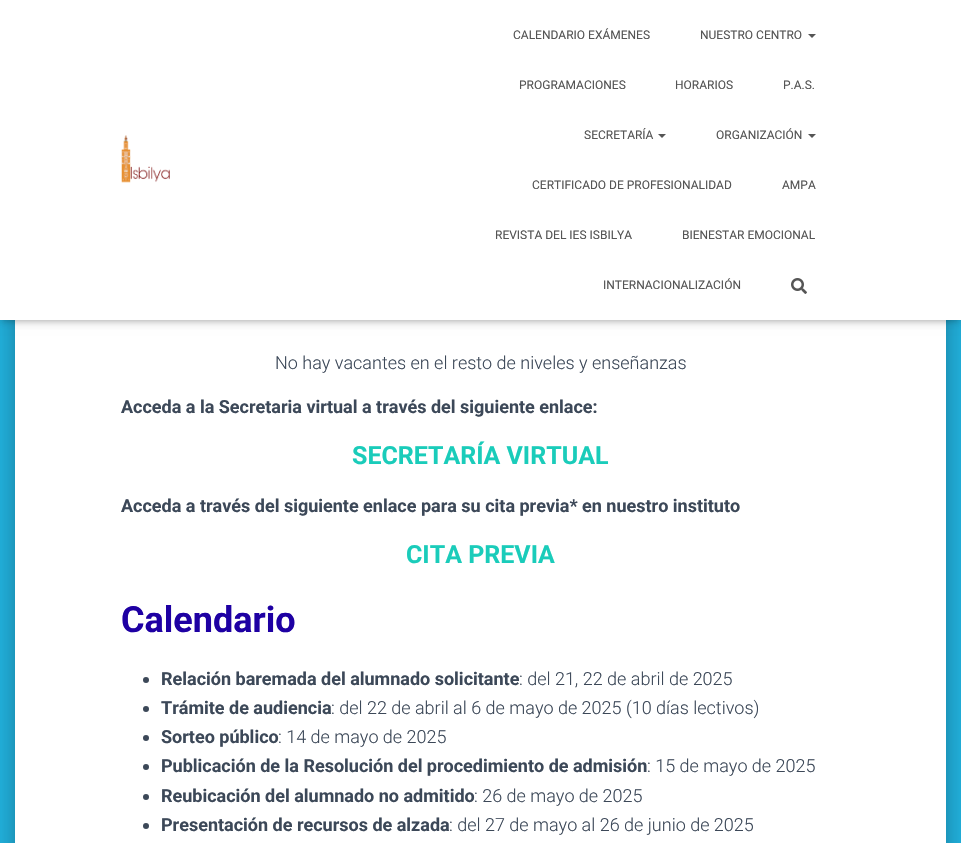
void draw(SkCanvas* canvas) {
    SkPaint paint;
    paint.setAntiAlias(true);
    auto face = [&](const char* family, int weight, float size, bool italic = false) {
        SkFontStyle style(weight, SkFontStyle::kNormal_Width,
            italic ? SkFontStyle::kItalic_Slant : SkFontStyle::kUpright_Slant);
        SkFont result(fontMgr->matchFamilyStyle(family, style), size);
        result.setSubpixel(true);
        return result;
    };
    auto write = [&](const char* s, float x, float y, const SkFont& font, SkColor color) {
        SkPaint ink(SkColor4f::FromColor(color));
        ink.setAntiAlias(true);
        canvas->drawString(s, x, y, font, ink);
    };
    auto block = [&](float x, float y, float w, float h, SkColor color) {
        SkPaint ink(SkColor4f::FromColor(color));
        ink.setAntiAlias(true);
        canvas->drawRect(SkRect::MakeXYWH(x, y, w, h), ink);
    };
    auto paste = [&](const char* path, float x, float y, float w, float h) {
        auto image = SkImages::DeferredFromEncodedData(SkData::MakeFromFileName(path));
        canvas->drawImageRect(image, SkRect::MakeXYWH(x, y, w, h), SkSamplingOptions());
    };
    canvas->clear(SkColorSetRGB(34, 181, 226));
    paint.setColor(SkColorSetARGB(51, 0, 0, 0));
    paint.setMaskFilter(SkMaskFilter::MakeBlur(kNormal_SkBlurStyle, 5));
    canvas->drawRoundRect(SkRect::MakeXYWH(20, -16, 921, 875), 1, 1, paint);
    paint.setMaskFilter(nullptr);
    paint.setColor(SkColorSetARGB(31, 0, 0, 0));
    paint.setMaskFilter(SkMaskFilter::MakeBlur(kNormal_SkBlurStyle, 15));
    canvas->drawRoundRect(SkRect::MakeXYWH(10, -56, 941, 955), 11, 11, paint);
    paint.setMaskFilter(nullptr);
    paint.setColor(SkColorSetARGB(36, 0, 0, 0));
    paint.setMaskFilter(SkMaskFilter::MakeBlur(kNormal_SkBlurStyle, 12));
    canvas->drawRoundRect(SkRect::MakeXYWH(13, -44, 935, 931), 8, 8, paint);
    paint.setMaskFilter(nullptr);
    block(15, 320, 931, 523, SK_ColorWHITE);
    paint.setColor(SkColorSetARGB(26, 0, 0, 0));
    paint.setMaskFilter(SkMaskFilter::MakeBlur(kNormal_SkBlurStyle, 2.5f));
    canvas->drawRect(SkRect::MakeXYWH(2, 6, 957, 316), paint);
    paint.setMaskFilter(nullptr);
    paint.setColor(SkColorSetARGB(31, 0, 0, 0));
    paint.setMaskFilter(SkMaskFilter::MakeBlur(kNormal_SkBlurStyle, 5));
    canvas->drawRect(SkRect::MakeXYWH(0, 1, 961, 320), paint);
    paint.setMaskFilter(nullptr);
    paint.setColor(SkColorSetARGB(107, 0, 0, 0));
    paint.setMaskFilter(SkMaskFilter::MakeBlur(kNormal_SkBlurStyle, 5));
    canvas->drawRect(SkRect::MakeXYWH(6, 7, 949, 308), paint);
    paint.setMaskFilter(nullptr);
    block(0, 0, 961, 320, SK_ColorWHITE);
    paste("pic1.png", 121, 135, 49, 48);
    auto kFont1 = face("Roboto", 400, 12);
    write("CALENDARIO EXÁMENES", 513, 39, kFont1, SkColorSetRGB(85, 85, 85));
    write("NUESTRO CENTRO", 700, 39, kFont1, SkColorSetRGB(85, 85, 85));
    paint.setColor(SkColorSetRGB(85, 85, 85));
    canvas->drawPath(SkPathBuilder().moveTo(808, 34).lineTo(816, 34).lineTo(812, 38).close().detach(), paint);
    write("PROGRAMACIONES", 519, 89, kFont1, SkColorSetRGB(85, 85, 85));
    write("HORARIOS", 675, 89, kFont1, SkColorSetRGB(85, 85, 85));
    write("P.A.S.", 783, 89, kFont1, SkColorSetRGB(85, 85, 85));
    write("SECRETARÍA", 584, 139, kFont1, SkColorSetRGB(85, 85, 85));
    canvas->drawPath(SkPathBuilder().moveTo(658, 134).lineTo(666, 134).lineTo(662, 138).close().detach(), paint);
    write("ORGANIZACIÓN", 716, 139, kFont1, SkColorSetRGB(85, 85, 85));
    canvas->drawPath(SkPathBuilder().moveTo(808, 134).lineTo(816, 134).lineTo(812, 138).close().detach(), paint);
    write("CERTIFICADO DE PROFESIONALIDAD", 532, 189, kFont1, SkColorSetRGB(85, 85, 85));
    write("AMPA", 782, 189, kFont1, SkColorSetRGB(85, 85, 85));
    write("REVISTA DEL IES ISBILYA", 495, 239, kFont1, SkColorSetRGB(85, 85, 85));
    write("BIENESTAR EMOCIONAL", 682, 239, kFont1, SkColorSetRGB(85, 85, 85));
    write("INTERNACIONALIZACIÓN", 603, 289, kFont1, SkColorSetRGB(85, 85, 85));
    paste("pic2.png", 791, 278, 16, 16);
    auto kFont2 = face("Roboto", 300, 18);
    write("No hay vacantes en el resto de niveles y enseñanzas", 275, 369, kFont2, SkColorSetRGB(60, 72, 88));
    auto kFont3 = face("Roboto", 700, 18);
    write("Acceda a la Secretaria virtual a través del siguiente enlace:", 121, 413, kFont3, SkColorSetRGB(60, 72, 88));
    auto kFont4 = face("Roboto", 700, 25);
    write("SECRETARÍA VIRTUAL", 352, 464, kFont4, SkColorSetRGB(26, 204, 186));
    write("Acceda a través del siguiente enlace para su cita previa* en nuestro instituto", 121, 512, kFont3, SkColorSetRGB(60, 72, 88));
    write("CITA PREVIA", 406, 563, kFont4, SkColorSetRGB(26, 204, 186));
    auto kFont5 = face("Roboto", 700, 36);
    write("Calendario", 121, 632, kFont5, SkColorSetRGB(30, 0, 163));
    paint.setColor(SkColorSetRGB(60, 72, 88));
    canvas->drawCircle(146, 680, 3, paint);
    write("Relación baremada del alumnado solicitante", 161, 685, kFont3, SkColorSetRGB(60, 72, 88));
    write(": del 21, 22 de abril de 2025", 519, 685, kFont2, SkColorSetRGB(60, 72, 88));
    canvas->drawCircle(146, 709, 3, paint);
    write("Trámite de audiencia", 161, 714, kFont3, SkColorSetRGB(60, 72, 88));
    write(": del 22 de abril al 6 de mayo de 2025 (10 días lectivos)", 331, 714, kFont2, SkColorSetRGB(60, 72, 88));
    canvas->drawCircle(146, 738, 3, paint);
    write("Sorteo público", 161, 743, kFont3, SkColorSetRGB(60, 72, 88));
    write(": 14 de mayo de 2025", 278, 743, kFont2, SkColorSetRGB(60, 72, 88));
    canvas->drawCircle(146, 767, 3, paint);
    write("Publicación de la Resolución del procedimiento de admisión", 161, 772, kFont3, SkColorSetRGB(60, 72, 88));
    write(": 15 de mayo de 2025", 647, 772, kFont2, SkColorSetRGB(60, 72, 88));
    canvas->drawCircle(146, 797, 3, paint);
    write("Reubicación del alumnado no admitido", 161, 802, kFont3, SkColorSetRGB(60, 72, 88));
    write(": 26 de mayo de 2025", 474, 802, kFont2, SkColorSetRGB(60, 72, 88));
    canvas->drawCircle(146, 826, 3, paint);
    write("Presentación de recursos de alzada", 161, 831, kFont3, SkColorSetRGB(60, 72, 88));
    write(": del 27 de mayo al 26 de junio de 2025", 449, 831, kFont2, SkColorSetRGB(60, 72, 88));
}
